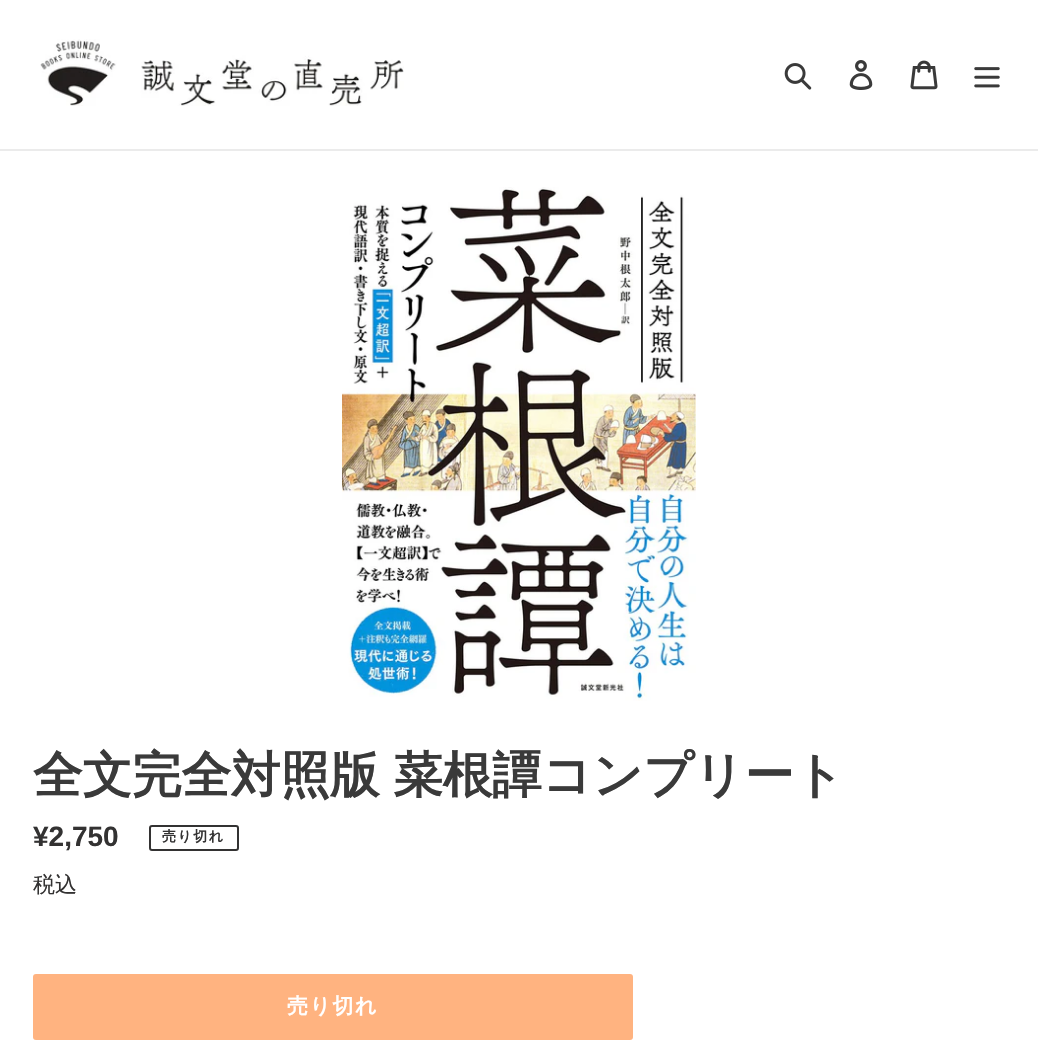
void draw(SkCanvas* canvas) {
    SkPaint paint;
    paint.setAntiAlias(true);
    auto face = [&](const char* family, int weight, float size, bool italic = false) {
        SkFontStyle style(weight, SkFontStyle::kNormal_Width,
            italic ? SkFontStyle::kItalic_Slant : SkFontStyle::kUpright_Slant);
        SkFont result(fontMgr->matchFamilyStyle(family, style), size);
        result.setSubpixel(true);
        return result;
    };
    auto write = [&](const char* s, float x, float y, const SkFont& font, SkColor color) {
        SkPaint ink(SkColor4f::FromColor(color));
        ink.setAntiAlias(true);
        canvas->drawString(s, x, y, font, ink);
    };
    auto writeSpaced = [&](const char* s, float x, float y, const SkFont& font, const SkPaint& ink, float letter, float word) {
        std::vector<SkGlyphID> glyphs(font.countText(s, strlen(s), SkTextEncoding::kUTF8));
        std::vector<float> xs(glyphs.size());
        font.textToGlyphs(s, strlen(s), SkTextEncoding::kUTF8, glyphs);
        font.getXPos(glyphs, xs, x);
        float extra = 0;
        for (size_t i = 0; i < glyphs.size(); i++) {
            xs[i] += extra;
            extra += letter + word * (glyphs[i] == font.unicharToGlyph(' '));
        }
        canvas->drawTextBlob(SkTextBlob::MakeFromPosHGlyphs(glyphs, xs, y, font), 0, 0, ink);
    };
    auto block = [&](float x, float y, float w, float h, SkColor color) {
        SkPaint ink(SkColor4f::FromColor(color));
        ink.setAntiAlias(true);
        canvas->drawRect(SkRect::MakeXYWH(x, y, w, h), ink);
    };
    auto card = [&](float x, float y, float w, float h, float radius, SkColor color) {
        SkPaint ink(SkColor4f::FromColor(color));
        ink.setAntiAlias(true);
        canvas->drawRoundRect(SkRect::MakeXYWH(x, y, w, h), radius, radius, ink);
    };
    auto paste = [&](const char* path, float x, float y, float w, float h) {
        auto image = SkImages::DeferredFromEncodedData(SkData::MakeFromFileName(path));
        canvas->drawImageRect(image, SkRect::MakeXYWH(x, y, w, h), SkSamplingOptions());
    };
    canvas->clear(SK_ColorWHITE);
    block(0, 149, 1038, 2, SkColorSetRGB(235, 235, 235));
    paste("pic1.png", 40, 39, 364, 67);
    paste("pic2.png", 784, 63, 28, 27);
    paste("pic3.png", 849, 60, 24, 30);
    paste("pic4.png", 910, 60, 28, 30);
    paste("pic5.png", 974, 67, 26, 21);
    paste("pic6.png", 342, 187, 354, 514);
    auto kFont1 = face("WenQuanYi Zen Hei", 700, 49.5f);
    paint.setColor(SkColorSetRGB(58, 58, 58));
    writeSpaced("全文完全対照版 菜根譚コンプリート", 33, 792, kFont1, paint, 0, -1);
    auto kFont2 = face("Liberation Sans", 700, 28);
    write("¥2,750", 33, 846, kFont2, SkColorSetRGB(51, 50, 50));
    paint.setStyle(SkPaint::kStroke_Style);
    paint.setStrokeWidth(2);
    paint.setColor(SkColorSetRGB(51, 50, 50));
    canvas->drawRoundRect(SkRect::MakeXYWH(150, 826, 88, 24), 2, 2, paint);
    auto kFont3 = face("WenQuanYi Zen Hei", 700, 14);
    paint.setStyle(SkPaint::kFill_Style);
    writeSpaced("売り切れ", 162, 841, kFont3, paint, 1.5f, 0);
    auto kFont4 = face("WenQuanYi Zen Hei", 500, 22);
    write("税込", 33, 892, kFont4, SkColorSetRGB(51, 50, 50));
    card(33, 974, 600, 66, 3, SkColorSetRGB(255, 179, 128));
    auto kFont5 = face("WenQuanYi Zen Hei", 700, 21);
    paint.setColor(SK_ColorWHITE);
    writeSpaced("売り切れ", 287, 1013, kFont5, paint, 1.5f, 0);
}
